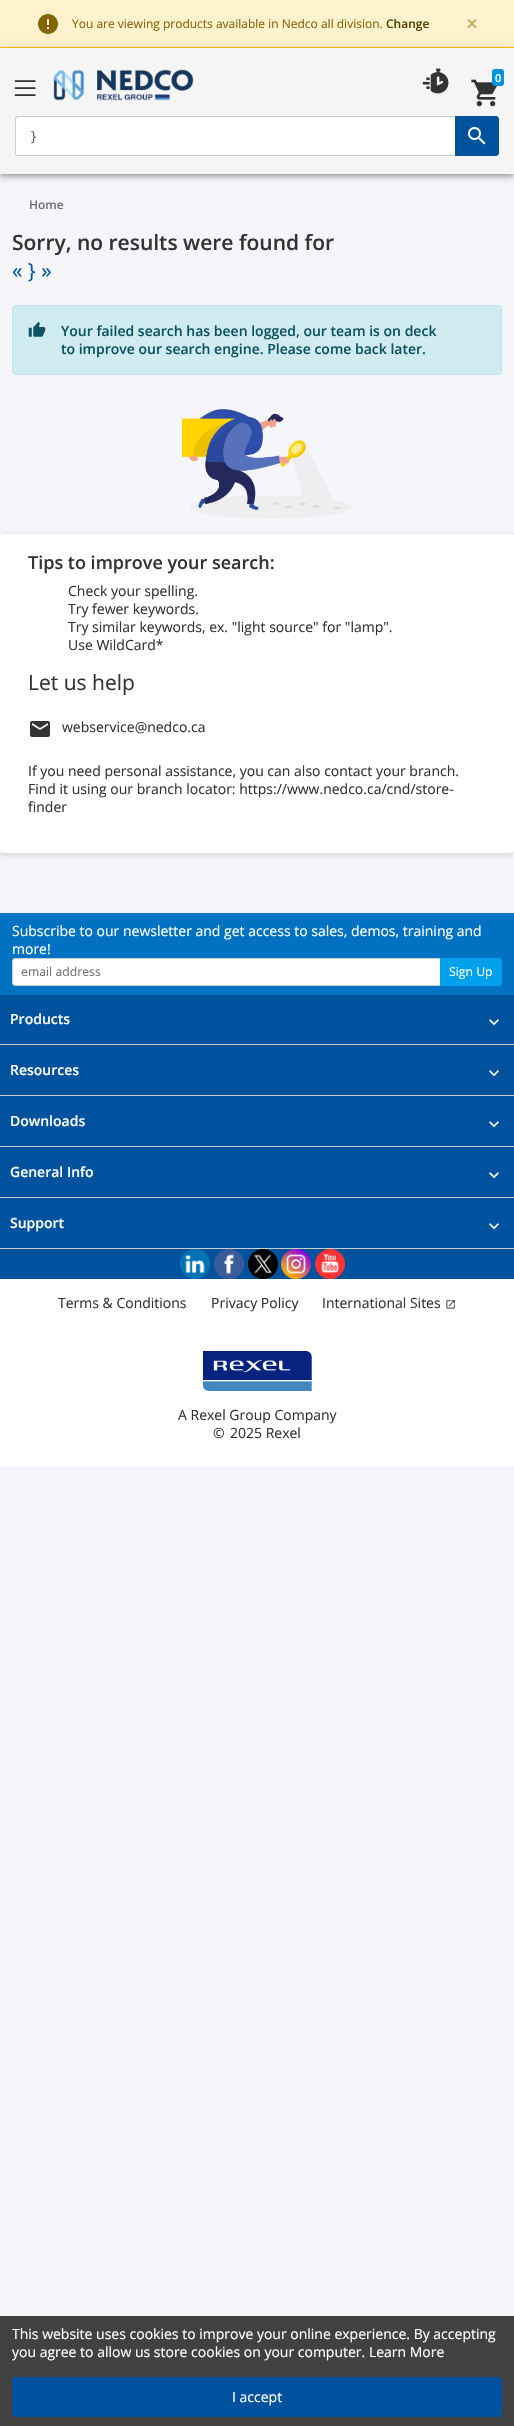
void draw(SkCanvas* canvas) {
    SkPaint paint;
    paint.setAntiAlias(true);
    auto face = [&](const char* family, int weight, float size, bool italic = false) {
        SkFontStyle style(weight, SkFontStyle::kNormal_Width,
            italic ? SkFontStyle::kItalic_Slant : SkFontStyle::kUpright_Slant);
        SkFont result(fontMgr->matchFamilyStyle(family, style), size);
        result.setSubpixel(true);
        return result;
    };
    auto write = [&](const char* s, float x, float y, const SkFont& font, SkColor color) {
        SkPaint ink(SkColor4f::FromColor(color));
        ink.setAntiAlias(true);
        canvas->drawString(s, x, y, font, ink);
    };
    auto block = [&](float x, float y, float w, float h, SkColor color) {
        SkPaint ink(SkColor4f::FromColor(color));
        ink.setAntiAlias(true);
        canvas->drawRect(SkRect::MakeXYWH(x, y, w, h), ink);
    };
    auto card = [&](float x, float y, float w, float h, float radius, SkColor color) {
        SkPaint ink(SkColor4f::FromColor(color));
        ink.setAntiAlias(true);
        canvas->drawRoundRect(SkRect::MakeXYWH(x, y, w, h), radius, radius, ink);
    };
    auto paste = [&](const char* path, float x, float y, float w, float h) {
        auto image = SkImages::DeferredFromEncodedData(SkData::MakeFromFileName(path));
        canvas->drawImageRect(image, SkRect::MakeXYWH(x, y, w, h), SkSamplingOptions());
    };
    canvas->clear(SkColorSetRGB(245, 245, 250));
    block(0, 0, 514, 47, SkColorSetRGB(255, 243, 205));
    block(0, 47, 514, 1, SkColorSetRGB(255, 193, 7));
    paste("pic1.png", 38, 14, 20, 20);
    auto kFont1 = face("Open Sans", 400, 12);
    write("You are viewing products available in Nedco all division.", 72, 28, kFont1, SkColorSetRGB(133, 100, 4));
    auto kFont2 = face("Open Sans", 600, 12);
    write("Change", 386, 28, kFont2, SkColorSetRGB(83, 63, 3));
    auto kFont3 = face("Open Sans", 600, 21);
    write("×", 466, 31, kFont3, SkColorSetRGB(194, 172, 105));
    paint.setColor(SkColorSetARGB(51, 0, 0, 0));
    paint.setMaskFilter(SkMaskFilter::MakeBlur(kNormal_SkBlurStyle, 2));
    canvas->drawRect(SkRect::MakeXYWH(1, 51, 512, 124), paint);
    paint.setMaskFilter(nullptr);
    paint.setColor(SkColorSetARGB(31, 0, 0, 0));
    paint.setMaskFilter(SkMaskFilter::MakeBlur(kNormal_SkBlurStyle, 5));
    canvas->drawRect(SkRect::MakeXYWH(0, 49, 514, 126), paint);
    paint.setMaskFilter(nullptr);
    paint.setColor(SkColorSetARGB(36, 0, 0, 0));
    paint.setMaskFilter(SkMaskFilter::MakeBlur(kNormal_SkBlurStyle, 2.5f));
    canvas->drawRect(SkRect::MakeXYWH(0, 52, 514, 126), paint);
    paint.setMaskFilter(nullptr);
    block(0, 48, 514, 126, SkColorSetRGB(245, 245, 245));
    paste("pic2.png", 14, 80, 22, 16);
    paste("pic3.png", 53, 69, 141, 32);
    paste("pic4.png", 422, 68, 27, 26);
    paste("pic5.png", 471, 79, 26, 28);
    card(492, 69, 12, 17, 3, SkColorSetRGB(0, 148, 222));
    auto kFont4 = face("Open Sans", 600, 11);
    write("0", 495, 82, kFont4, SK_ColorWHITE);
    paint.setColor(SK_ColorWHITE);
    canvas->drawPath(SkPathBuilder().moveTo(18, 117).lineTo(456, 117).lineTo(456, 155).lineTo(18, 155).cubicTo(17, 155, 16, 154, 16, 153).lineTo(16, 119).cubicTo(16, 118, 17, 117, 18, 117).close().detach(), paint);
    paint.setColor(SkColorSetRGB(204, 204, 204));
    canvas->drawPath(SkPathBuilder(SkPathFillType::kEvenOdd).moveTo(18, 116).lineTo(456, 116).lineTo(456, 156).lineTo(18, 156).cubicTo(16, 156, 15, 155, 15, 153).lineTo(15, 119).cubicTo(15, 117, 16, 116, 18, 116).close().moveTo(18, 117).lineTo(456, 117).lineTo(456, 155).lineTo(18, 155).cubicTo(17, 155, 16, 154, 16, 153).lineTo(16, 119).cubicTo(16, 118, 17, 117, 18, 117).close().detach(), paint);
    auto kFont5 = face("Open Sans", 400, 14);
    write("}", 31, 141, kFont5, SkColorSetRGB(88, 88, 88));
    paint.setColor(SkColorSetRGB(0, 82, 159));
    canvas->drawPath(SkPathBuilder().moveTo(455.5f, 116.5f).lineTo(496, 116.5f).cubicTo(497.5f, 116.5f, 498.5f, 117.5f, 498.5f, 119).lineTo(498.5f, 153).cubicTo(498.5f, 154.5f, 497.5f, 155.5f, 496, 155.5f).lineTo(455.5f, 155.5f).close().detach(), paint);
    paint.setStyle(SkPaint::kStroke_Style);
    paint.setStrokeWidth(1);
    canvas->drawPath(SkPathBuilder().moveTo(455.5f, 116.5f).lineTo(496, 116.5f).cubicTo(497.5f, 116.5f, 498.5f, 117.5f, 498.5f, 119).lineTo(498.5f, 153).cubicTo(498.5f, 154.5f, 497.5f, 155.5f, 496, 155.5f).lineTo(455.5f, 155.5f).close().detach(), paint);
    paste("pic6.png", 468, 127, 18, 18);
    write("Home", 29, 209, kFont2, SkColorSetRGB(114, 114, 114));
    write("Sorry, no results were found for", 12, 250, kFont3, SkColorSetRGB(51, 51, 51));
    auto kFont6 = face("Open Sans", 400, 21);
    write("« } »", 12, 278, kFont6, SkColorSetRGB(0, 82, 159));
    paint.setStyle(SkPaint::kFill_Style);
    paint.setColor(SkColorSetRGB(209, 236, 241));
    canvas->drawRoundRect(SkRect::MakeXYWH(12.5f, 305.5f, 489, 69), 3.5f, 3.5f, paint);
    paint.setStyle(SkPaint::kStroke_Style);
    paint.setColor(SkColorSetRGB(190, 229, 235));
    canvas->drawRoundRect(SkRect::MakeXYWH(12.5f, 305.5f, 489, 69), 3.5f, 3.5f, paint);
    paste("pic7.png", 28, 321, 18, 16);
    auto kFont7 = face("Open Sans", 600, 14);
    write("Your failed search has been logged, our team is on deck", 61, 336, kFont7, SkColorSetRGB(12, 84, 96));
    write("to improve our search engine. Please come back later.", 61, 354, kFont7, SkColorSetRGB(12, 84, 96));
    paste("pic8.png", 182, 409, 170, 110);
    paint.setStyle(SkPaint::kFill_Style);
    paint.setColor(SkColorSetARGB(13, 0, 0, 0));
    paint.setMaskFilter(SkMaskFilter::MakeBlur(kNormal_SkBlurStyle, 2));
    canvas->drawRoundRect(SkRect::MakeXYWH(0, 538, 514, 319), 3, 3, paint);
    paint.setMaskFilter(nullptr);
    paint.setColor(SkColorSetARGB(26, 0, 0, 0));
    paint.setMaskFilter(SkMaskFilter::MakeBlur(kNormal_SkBlurStyle, 2));
    canvas->drawRoundRect(SkRect::MakeXYWH(0, 534, 514, 319), 3, 3, paint);
    paint.setMaskFilter(nullptr);
    card(0, 534, 514, 319, 3, SK_ColorWHITE);
    auto kFont8 = face("Open Sans", 600, 18);
    write("Tips to improve your search:", 28, 569, kFont8, SkColorSetRGB(51, 51, 51));
    write("Check your spelling.", 68, 596, kFont5, SkColorSetRGB(51, 51, 51));
    write("Try fewer keywords.", 68, 614, kFont5, SkColorSetRGB(51, 51, 51));
    write("Try similar keywords, ex. \"light source\" for \"lamp\".", 68, 632, kFont5, SkColorSetRGB(51, 51, 51));
    write("Use WildCard*", 68, 650, kFont5, SkColorSetRGB(51, 51, 51));
    write("Let us help", 28, 690, kFont6, SkColorSetRGB(51, 51, 51));
    paste("pic9.png", 30, 721, 20, 16);
    write("webservice@nedco.ca", 62, 732, kFont5, SkColorSetRGB(51, 51, 51));
    write("If you need personal assistance, you can also contact your branch.", 28, 776, kFont5, SkColorSetRGB(51, 51, 51));
    write("Find it using our branch locator: https://www.nedco.ca/cnd/store-", 28, 794, kFont5, SkColorSetRGB(51, 51, 51));
    write("finder", 28, 812, kFont5, SkColorSetRGB(51, 51, 51));
    block(0, 1279, 514, 187, SK_ColorWHITE);
    block(0, 995, 514, 284, SkColorSetRGB(0, 82, 159));
    block(0, 913, 514, 82, SkColorSetRGB(0, 114, 193));
    write("Subscribe to our newsletter and get access to sales, demos, training and", 12, 936, kFont5, SK_ColorWHITE);
    write("more!", 12, 954, kFont5, SK_ColorWHITE);
    paint.setColor(SK_ColorWHITE);
    canvas->drawPath(SkPathBuilder().moveTo(15, 958.5f).lineTo(440.5f, 958.5f).lineTo(440.5f, 985.5f).lineTo(15, 985.5f).cubicTo(13.5f, 985.5f, 12.5f, 984.5f, 12.5f, 983).lineTo(12.5f, 961).cubicTo(12.5f, 959.5f, 13.5f, 958.5f, 15, 958.5f).close().detach(), paint);
    paint.setStyle(SkPaint::kStroke_Style);
    paint.setColor(SkColorSetRGB(204, 204, 204));
    canvas->drawPath(SkPathBuilder().moveTo(15, 958.5f).lineTo(440.5f, 958.5f).lineTo(440.5f, 985.5f).lineTo(15, 985.5f).cubicTo(13.5f, 985.5f, 12.5f, 984.5f, 12.5f, 983).lineTo(12.5f, 961).cubicTo(12.5f, 959.5f, 13.5f, 958.5f, 15, 958.5f).close().detach(), paint);
    auto kFont9 = face("Open Sans", 400, 12.25f);
    write("email address", 21, 976, kFont9, SkColorSetRGB(114, 114, 114));
    paint.setStyle(SkPaint::kFill_Style);
    paint.setColor(SkColorSetRGB(0, 161, 236));
    canvas->drawPath(SkPathBuilder().moveTo(440.5f, 958.5f).lineTo(499, 958.5f).cubicTo(500.5f, 958.5f, 501.5f, 959.5f, 501.5f, 961).lineTo(501.5f, 983).cubicTo(501.5f, 984.5f, 500.5f, 985.5f, 499, 985.5f).lineTo(440.5f, 985.5f).close().detach(), paint);
    paint.setStyle(SkPaint::kStroke_Style);
    canvas->drawPath(SkPathBuilder().moveTo(440.5f, 958.5f).lineTo(499, 958.5f).cubicTo(500.5f, 958.5f, 501.5f, 959.5f, 501.5f, 961).lineTo(501.5f, 983).cubicTo(501.5f, 984.5f, 500.5f, 985.5f, 499, 985.5f).lineTo(440.5f, 985.5f).close().detach(), paint);
    write("Sign Up", 449, 976, kFont9, SK_ColorWHITE);
    block(0, 1044, 514, 1, SkColorSetRGB(204, 204, 204));
    write("Products", 10, 1024, kFont7, SK_ColorWHITE);
    paste("pic10.png", 489, 1019, 10, 7);
    block(0, 1095, 514, 1, SkColorSetRGB(204, 204, 204));
    write("Resources", 10, 1075, kFont7, SK_ColorWHITE);
    paste("pic10.png", 489, 1070, 10, 7);
    block(0, 1146, 514, 1, SkColorSetRGB(204, 204, 204));
    write("Downloads", 10, 1126, kFont7, SK_ColorWHITE);
    paste("pic10.png", 489, 1121, 10, 7);
    block(0, 1197, 514, 1, SkColorSetRGB(204, 204, 204));
    write("General Info", 10, 1177, kFont7, SK_ColorWHITE);
    paste("pic10.png", 489, 1172, 10, 7);
    block(0, 1248, 514, 1, SkColorSetRGB(204, 204, 204));
    write("Support", 10, 1228, kFont7, SK_ColorWHITE);
    paste("pic10.png", 489, 1223, 10, 7);
    paste("pic11.png", 180, 1249, 30, 30);
    paste("pic12.png", 214, 1249, 30, 30);
    paste("pic13.png", 248, 1249, 30, 30);
    paste("pic14.png", 281, 1249, 30, 30);
    paste("pic15.png", 315, 1249, 30, 30);
    write("Terms & Conditions", 58, 1308, kFont5, SkColorSetRGB(51, 51, 51));
    write("Privacy Policy", 211, 1308, kFont5, SkColorSetRGB(51, 51, 51));
    write("International Sites", 322, 1308, kFont5, SkColorSetRGB(51, 51, 51));
    paste("pic16.png", 446, 1300, 9, 9);
    paste("pic17.png", 203, 1351, 109, 40);
    write("A Rexel Group Company", 178, 1420, kFont5, SkColorSetRGB(51, 51, 51));
    write("©", 213, 1438, kFont5, SkColorSetRGB(51, 51, 51));
    write("2025 Rexel", 230, 1438, kFont5, SkColorSetRGB(51, 51, 51));
    block(0, 2316, 514, 110, SkColorSetRGB(65, 65, 66));
    write("This website uses cookies to improve your online experience. By accepting", 12, 2339, kFont5, SK_ColorWHITE);
    write("you agree to allow us store cookies on your computer. Learn More", 12, 2357, kFont5, SK_ColorWHITE);
    paint.setStyle(SkPaint::kFill_Style);
    paint.setColor(SkColorSetRGB(0, 82, 159));
    canvas->drawRoundRect(SkRect::MakeXYWH(12.5f, 2377.5f, 489, 39), 2.5f, 2.5f, paint);
    paint.setStyle(SkPaint::kStroke_Style);
    canvas->drawRoundRect(SkRect::MakeXYWH(12.5f, 2377.5f, 489, 39), 2.5f, 2.5f, paint);
    write("I accept", 232, 2402, kFont5, SK_ColorWHITE);
}
